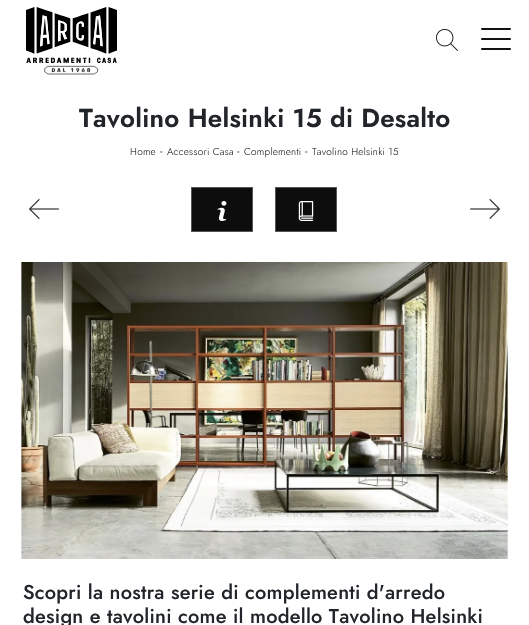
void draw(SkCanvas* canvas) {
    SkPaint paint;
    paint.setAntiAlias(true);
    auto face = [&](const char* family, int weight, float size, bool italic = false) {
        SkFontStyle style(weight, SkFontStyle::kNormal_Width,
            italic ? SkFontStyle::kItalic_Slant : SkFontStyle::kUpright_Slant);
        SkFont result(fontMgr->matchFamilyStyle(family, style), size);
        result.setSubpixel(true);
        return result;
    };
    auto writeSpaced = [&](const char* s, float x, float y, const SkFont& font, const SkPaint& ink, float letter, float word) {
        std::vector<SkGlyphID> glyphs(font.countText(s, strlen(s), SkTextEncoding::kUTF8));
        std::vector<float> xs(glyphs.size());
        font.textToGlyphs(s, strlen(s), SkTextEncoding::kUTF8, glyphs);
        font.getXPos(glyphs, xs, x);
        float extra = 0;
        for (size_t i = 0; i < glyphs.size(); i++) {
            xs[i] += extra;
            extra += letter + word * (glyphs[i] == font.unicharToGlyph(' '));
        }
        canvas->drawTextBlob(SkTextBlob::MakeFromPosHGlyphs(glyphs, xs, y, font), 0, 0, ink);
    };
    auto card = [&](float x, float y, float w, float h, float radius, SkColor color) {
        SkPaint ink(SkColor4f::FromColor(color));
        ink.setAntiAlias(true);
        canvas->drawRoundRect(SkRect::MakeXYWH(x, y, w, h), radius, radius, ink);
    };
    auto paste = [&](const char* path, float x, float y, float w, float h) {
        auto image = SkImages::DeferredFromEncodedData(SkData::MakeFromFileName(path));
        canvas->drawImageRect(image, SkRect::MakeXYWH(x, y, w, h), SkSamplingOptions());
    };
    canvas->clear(SK_ColorWHITE);
    paste("pic1.png", 26, 7, 91, 68);
    paste("pic2.png", 436, 29, 22, 22);
    card(481, 28, 30, 2, 1, SkColorSetRGB(18, 18, 18));
    card(481, 38, 30, 2, 1, SkColorSetRGB(18, 18, 18));
    card(481, 48, 30, 2, 1, SkColorSetRGB(18, 18, 18));
    auto kFont1 = face("Jost", 600, 26);
    paint.setColor(SkColorSetRGB(33, 37, 41));
    writeSpaced("Tavolino Helsinki 15 di Desalto", 79, 127, kFont1, paint, 0.25f, 0);
    auto kFont2 = face("Jost", 300, 10);
    writeSpaced("Home", 130, 155, kFont2, paint, 0.25f, 0);
    auto kFont3 = face("Jost", 300, 12);
    writeSpaced("-", 160, 155, kFont3, paint, 0.25f, 0);
    writeSpaced("Accessori Casa", 167, 155, kFont2, paint, 0.25f, 0);
    writeSpaced("-", 237, 155, kFont3, paint, 0.25f, 0);
    writeSpaced("Complementi", 244, 155, kFont2, paint, 0.25f, 0);
    writeSpaced("-", 305, 155, kFont3, paint, 0.25f, 0);
    writeSpaced("Tavolino Helsinki 15", 312, 155, kFont2, paint, 0.25f, 0);
    paste("pic3.png", 29, 199, 30, 20);
    paint.setColor(SkColorSetRGB(13, 13, 13));
    canvas->drawRect(SkRect::MakeXYWH(191.5f, 187.5f, 61, 44), paint);
    paint.setStyle(SkPaint::kStroke_Style);
    paint.setStrokeWidth(1);
    paint.setColor(SkColorSetRGB(85, 85, 85));
    canvas->drawRect(SkRect::MakeXYWH(191.5f, 187.5f, 61, 44), paint);
    paste("pic4.png", 217, 201, 10, 20);
    paint.setStyle(SkPaint::kFill_Style);
    paint.setColor(SkColorSetRGB(13, 13, 13));
    canvas->drawRect(SkRect::MakeXYWH(275.5f, 187.5f, 61, 44), paint);
    paint.setStyle(SkPaint::kStroke_Style);
    paint.setColor(SkColorSetRGB(85, 85, 85));
    canvas->drawRect(SkRect::MakeXYWH(275.5f, 187.5f, 61, 44), paint);
    paste("pic5.png", 298, 201, 16, 20);
    paste("pic6.png", 470, 199, 30, 20);
    paste("pic7.png", 20, 262, 489, 297);
    auto kFont4 = face("Jost", 500, 20);
    paint.setStyle(SkPaint::kFill_Style);
    paint.setColor(SkColorSetRGB(33, 37, 41));
    writeSpaced("Scopri la nostra serie di complementi d'arredo", 23, 599, kFont4, paint, 0.25f, 0);
    writeSpaced("design e tavolini come il modello Tavolino Helsinki", 23, 623, kFont4, paint, 0.25f, 0);
}
